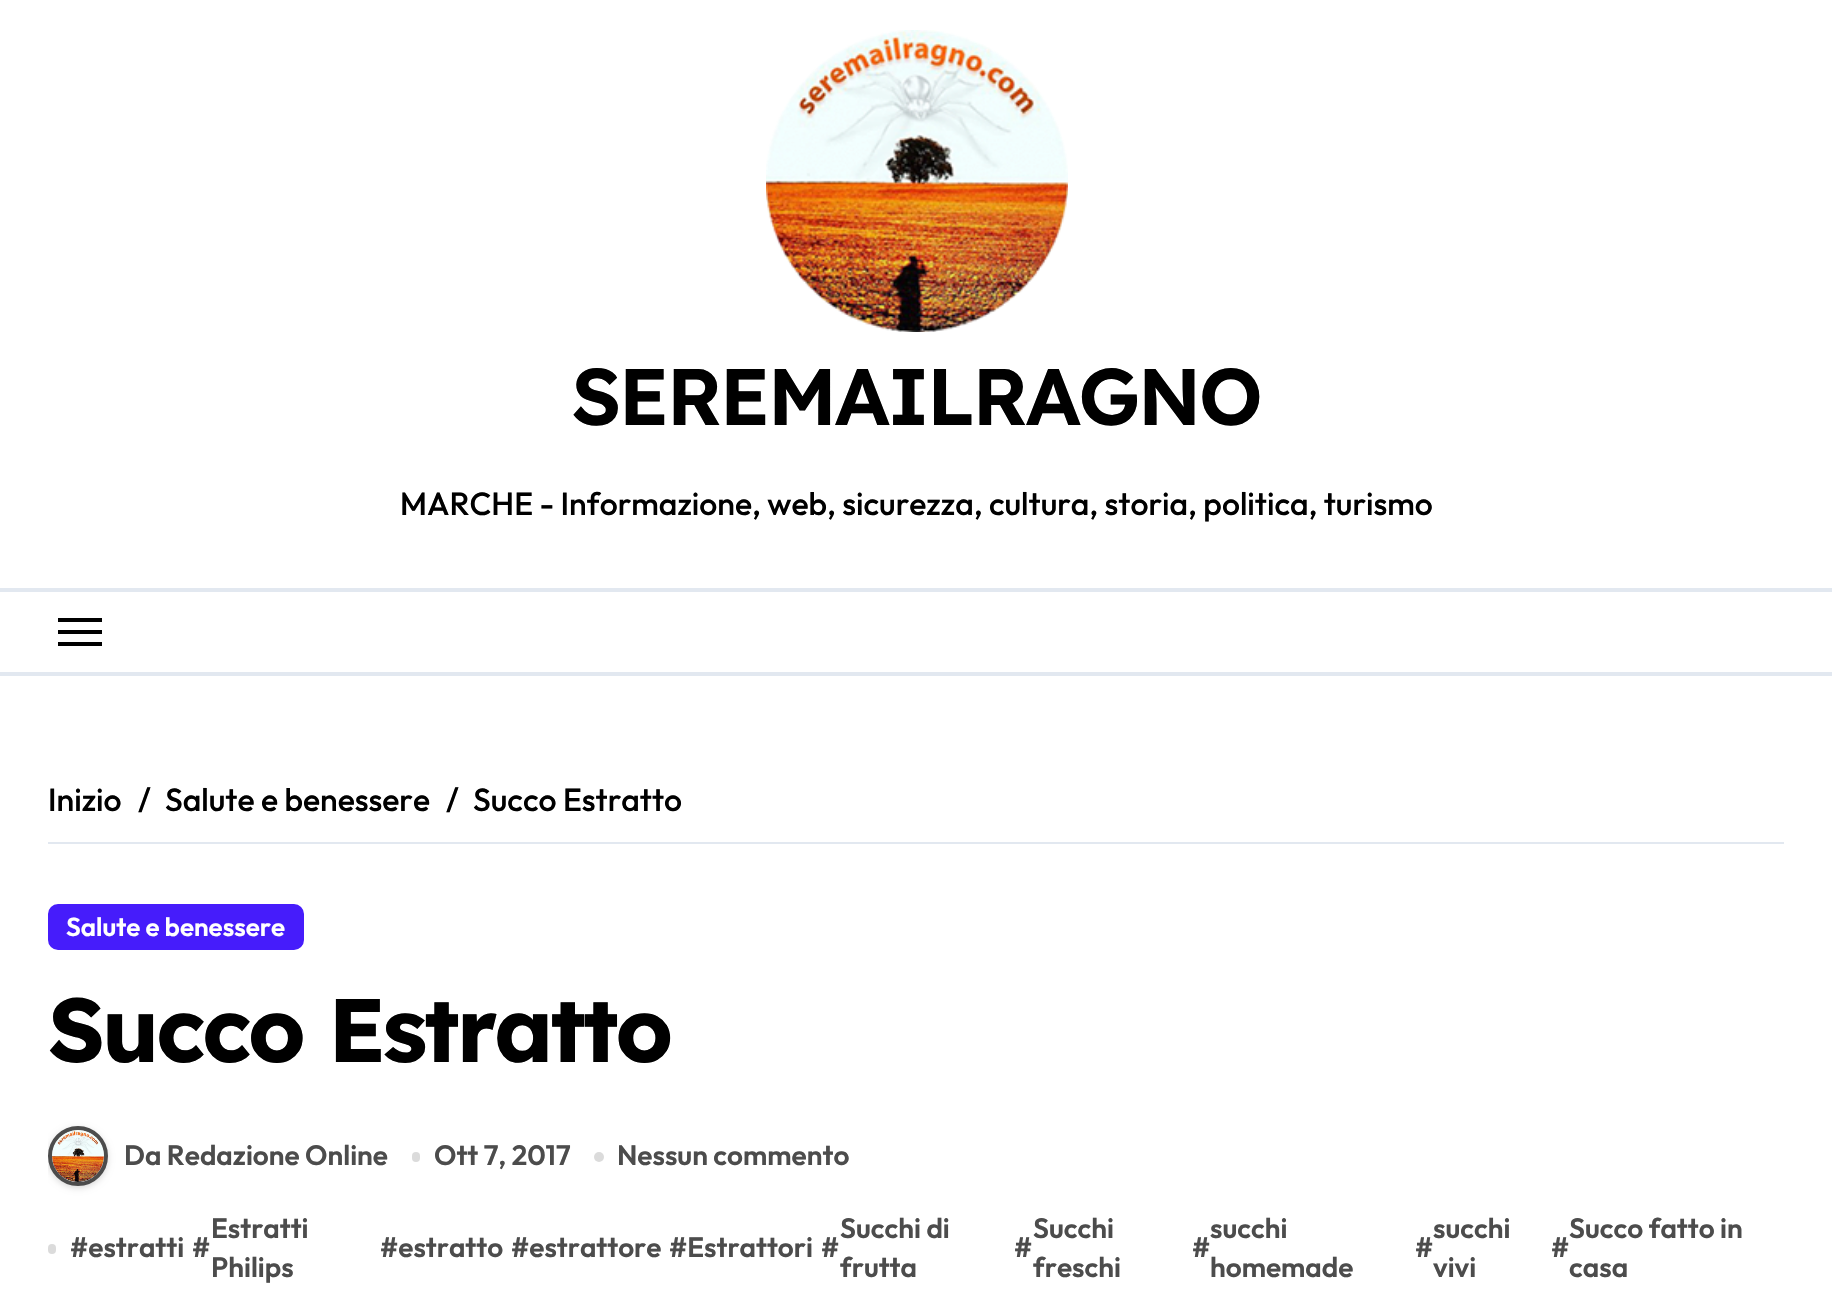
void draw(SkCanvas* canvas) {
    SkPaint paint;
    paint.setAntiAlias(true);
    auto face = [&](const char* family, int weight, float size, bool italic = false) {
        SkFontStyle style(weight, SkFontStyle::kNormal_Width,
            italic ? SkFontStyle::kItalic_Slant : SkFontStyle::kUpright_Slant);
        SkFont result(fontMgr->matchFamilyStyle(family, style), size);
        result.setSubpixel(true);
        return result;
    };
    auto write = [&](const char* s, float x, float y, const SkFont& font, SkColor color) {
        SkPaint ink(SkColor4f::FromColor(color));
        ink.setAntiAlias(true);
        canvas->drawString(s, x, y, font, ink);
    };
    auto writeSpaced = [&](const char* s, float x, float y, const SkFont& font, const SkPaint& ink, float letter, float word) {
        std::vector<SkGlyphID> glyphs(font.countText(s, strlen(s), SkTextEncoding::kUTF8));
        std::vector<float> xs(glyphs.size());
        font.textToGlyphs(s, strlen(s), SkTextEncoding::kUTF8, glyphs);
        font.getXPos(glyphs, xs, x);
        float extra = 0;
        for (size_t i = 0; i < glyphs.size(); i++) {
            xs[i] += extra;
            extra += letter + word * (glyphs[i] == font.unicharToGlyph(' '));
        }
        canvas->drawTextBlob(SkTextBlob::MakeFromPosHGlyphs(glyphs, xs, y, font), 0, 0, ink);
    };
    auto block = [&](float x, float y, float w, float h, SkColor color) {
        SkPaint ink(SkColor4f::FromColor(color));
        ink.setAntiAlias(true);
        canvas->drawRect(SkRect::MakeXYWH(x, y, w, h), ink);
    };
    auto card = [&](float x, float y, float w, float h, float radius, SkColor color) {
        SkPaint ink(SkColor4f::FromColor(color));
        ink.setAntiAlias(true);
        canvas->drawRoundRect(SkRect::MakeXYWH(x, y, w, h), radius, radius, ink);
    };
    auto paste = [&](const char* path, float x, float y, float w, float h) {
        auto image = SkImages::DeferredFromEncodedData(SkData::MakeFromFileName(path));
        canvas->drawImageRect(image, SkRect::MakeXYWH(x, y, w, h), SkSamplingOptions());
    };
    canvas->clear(SK_ColorWHITE);
    paste("pic1.png", 766, 30, 302, 302);
    auto kFont1 = face("Lexend Deca", 600, 80);
    paint.setColor(SK_ColorBLACK);
    writeSpaced("SEREMAILRAGNO", 571, 425, kFont1, paint, -2.9f, 0);
    auto kFont2 = face("Outfit", 500, 32);
    write("MARCHE - Informazione, web, sicurezza, cultura, storia, politica, turismo", 400, 515, kFont2, SK_ColorBLACK);
    block(0, 588, 1832, 4, SkColorSetRGB(226, 232, 240));
    block(0, 672, 1832, 4, SkColorSetRGB(226, 232, 240));
    block(58, 618, 44, 4, SK_ColorBLACK);
    block(58, 630, 44, 4, SK_ColorBLACK);
    block(58, 642, 44, 4, SK_ColorBLACK);
    block(48, 842, 1736, 2, SkColorSetRGB(226, 232, 240));
    write("Inizio", 48, 811, kFont2, SK_ColorBLACK);
    write("/", 138, 811, kFont2, SK_ColorBLACK);
    write("Salute e benessere", 165, 811, kFont2, SK_ColorBLACK);
    write("/", 446, 811, kFont2, SK_ColorBLACK);
    write("Succo Estratto", 473, 811, kFont2, SK_ColorBLACK);
    paint.setColor(SkColorSetRGB(70, 28, 251));
    canvas->drawRoundRect(SkRect::MakeXYWH(49, 905, 254, 44), 9, 9, paint);
    paint.setStyle(SkPaint::kStroke_Style);
    paint.setStrokeWidth(2);
    canvas->drawRoundRect(SkRect::MakeXYWH(49, 905, 254, 44), 9, 9, paint);
    auto kFont3 = face("Outfit", 600, 26);
    write("Salute e benessere", 66, 936, kFont3, SK_ColorWHITE);
    auto kFont4 = face("Lexend Deca", 700, 90);
    paint.setStyle(SkPaint::kFill_Style);
    paint.setColor(SK_ColorBLACK);
    writeSpaced("Succo Estratto", 48, 1062, kFont4, paint, -3.25f, 0);
    canvas->save();
    canvas->clipRect(SkRect::MakeXYWH(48, 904, 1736, 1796));
    paint.setColor(SkColorSetARGB(38, 0, 0, 0));
    paint.setMaskFilter(SkMaskFilter::MakeBlur(kNormal_SkBlurStyle, 3));
    canvas->drawRoundRect(SkRect::MakeXYWH(48, 1128, 60, 60), 30, 30, paint);
    paint.setMaskFilter(nullptr);
    canvas->restore();
    paint.setStyle(SkPaint::kStroke_Style);
    paint.setStrokeWidth(4);
    paint.setColor(SkColorSetRGB(76, 76, 76));
    canvas->drawCircle(78, 1156, 28, paint);
    paste("pic2.png", 52, 1130, 52, 52);
    auto kFont5 = face("Outfit", 600, 28);
    write("Da Redazione Online", 124, 1165, kFont5, SkColorSetRGB(76, 76, 76));
    card(412, 1152, 8, 10, 4, SkColorSetRGB(219, 219, 219));
    write("Ott 7, 2017", 434, 1165, kFont5, SkColorSetRGB(76, 76, 76));
    paint.setStyle(SkPaint::kFill_Style);
    paint.setColor(SkColorSetRGB(219, 219, 219));
    canvas->drawCircle(599, 1157, 5, paint);
    write("Nessun commento", 617, 1165, kFont5, SkColorSetRGB(76, 76, 76));
    card(48, 1244, 8, 10, 4, SkColorSetRGB(219, 219, 219));
    write("#estratti", 70, 1257, kFont5, SkColorSetRGB(76, 76, 76));
    write("#", 192, 1257, kFont5, SkColorSetRGB(76, 76, 76));
    write("Estratti", 211, 1238, kFont5, SkColorSetRGB(76, 76, 76));
    write("Philips", 211, 1277, kFont5, SkColorSetRGB(76, 76, 76));
    write("#estratto", 380, 1257, kFont5, SkColorSetRGB(76, 76, 76));
    write("#estrattore", 511, 1257, kFont5, SkColorSetRGB(76, 76, 76));
    write("#Estrattori", 669, 1257, kFont5, SkColorSetRGB(76, 76, 76));
    write("#", 821, 1257, kFont5, SkColorSetRGB(76, 76, 76));
    write("Succhi di", 840, 1238, kFont5, SkColorSetRGB(76, 76, 76));
    write("frutta", 840, 1277, kFont5, SkColorSetRGB(76, 76, 76));
    write("#", 1014, 1257, kFont5, SkColorSetRGB(76, 76, 76));
    write("Succhi", 1033, 1238, kFont5, SkColorSetRGB(76, 76, 76));
    write("freschi", 1033, 1277, kFont5, SkColorSetRGB(76, 76, 76));
    write("#", 1192, 1257, kFont5, SkColorSetRGB(76, 76, 76));
    write("succhi", 1210, 1238, kFont5, SkColorSetRGB(76, 76, 76));
    write("homemade", 1210, 1277, kFont5, SkColorSetRGB(76, 76, 76));
    write("#", 1415, 1257, kFont5, SkColorSetRGB(76, 76, 76));
    write("succhi", 1433, 1238, kFont5, SkColorSetRGB(76, 76, 76));
    write("vivi", 1433, 1277, kFont5, SkColorSetRGB(76, 76, 76));
    write("#", 1551, 1257, kFont5, SkColorSetRGB(76, 76, 76));
    write("Succo fatto in", 1569, 1238, kFont5, SkColorSetRGB(76, 76, 76));
    write("casa", 1569, 1277, kFont5, SkColorSetRGB(76, 76, 76));
}
